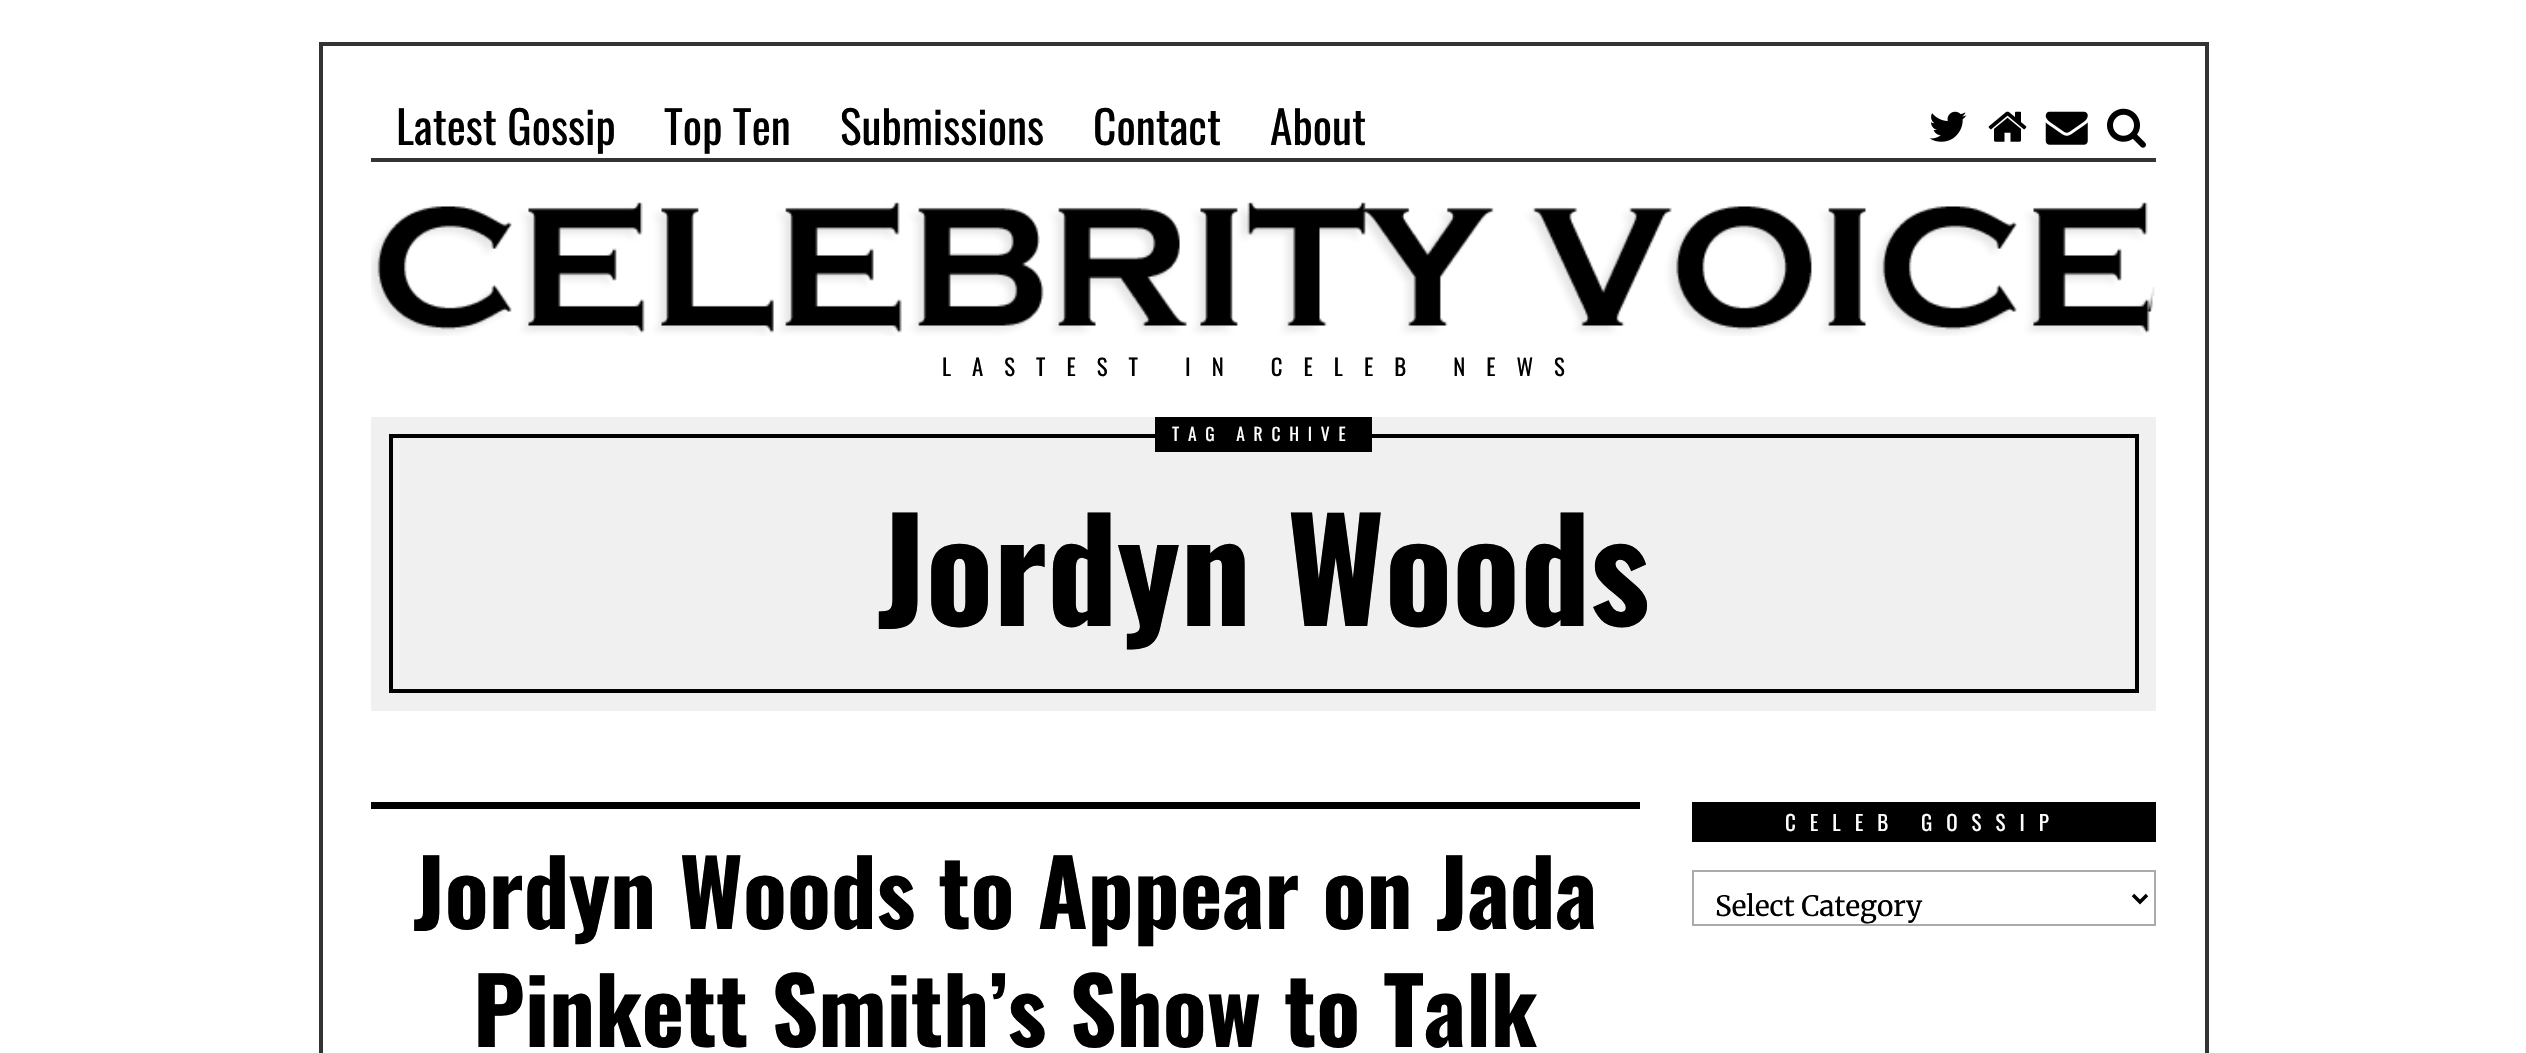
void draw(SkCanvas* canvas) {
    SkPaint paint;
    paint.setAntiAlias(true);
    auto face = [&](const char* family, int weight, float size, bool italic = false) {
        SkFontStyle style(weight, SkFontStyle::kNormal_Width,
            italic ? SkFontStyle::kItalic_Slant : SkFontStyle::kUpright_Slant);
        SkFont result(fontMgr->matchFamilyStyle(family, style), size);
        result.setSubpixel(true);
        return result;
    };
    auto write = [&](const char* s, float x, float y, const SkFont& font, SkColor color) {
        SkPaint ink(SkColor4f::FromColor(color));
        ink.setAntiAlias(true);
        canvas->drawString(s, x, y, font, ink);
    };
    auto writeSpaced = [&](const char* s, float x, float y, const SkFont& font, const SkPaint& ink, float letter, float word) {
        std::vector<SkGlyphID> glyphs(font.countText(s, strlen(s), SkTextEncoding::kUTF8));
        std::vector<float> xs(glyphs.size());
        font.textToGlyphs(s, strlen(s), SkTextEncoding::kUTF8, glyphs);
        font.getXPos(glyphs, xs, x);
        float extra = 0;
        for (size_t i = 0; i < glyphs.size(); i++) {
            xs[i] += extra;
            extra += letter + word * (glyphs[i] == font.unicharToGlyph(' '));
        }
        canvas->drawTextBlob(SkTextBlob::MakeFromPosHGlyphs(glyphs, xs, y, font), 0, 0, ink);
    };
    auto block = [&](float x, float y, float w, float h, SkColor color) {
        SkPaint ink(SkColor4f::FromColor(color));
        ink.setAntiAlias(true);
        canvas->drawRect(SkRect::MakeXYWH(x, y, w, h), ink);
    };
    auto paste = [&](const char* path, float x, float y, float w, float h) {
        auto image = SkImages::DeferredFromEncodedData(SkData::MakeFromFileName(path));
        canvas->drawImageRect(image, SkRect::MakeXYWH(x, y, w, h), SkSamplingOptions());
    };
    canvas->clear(SK_ColorWHITE);
    block(319, 42, 1890, 4, SkColorSetRGB(51, 51, 51));
    block(319, 46, 4, 1007, SkColorSetRGB(51, 51, 51));
    auto kFont1 = face("Oswald", 400, 45.5f);
    write("Latest Gossip", 396, 145, kFont1, SK_ColorBLACK);
    write("Top Ten", 664, 145, kFont1, SK_ColorBLACK);
    write("Submissions", 840, 145, kFont1, SK_ColorBLACK);
    write("Contact", 1093, 145, kFont1, SK_ColorBLACK);
    write("About", 1270, 145, kFont1, SK_ColorBLACK);
    paste("pic1.png", 1929, 111, 38, 31);
    paste("pic2.png", 1988, 111, 39, 31);
    paste("pic3.png", 2045, 111, 43, 34);
    paste("pic4.png", 2107, 108, 39, 40);
    block(371, 158, 1785, 4, SkColorSetRGB(51, 51, 51));
    block(2205, 46, 4, 1007, SkColorSetRGB(51, 51, 51));
    paste("pic5.png", 371, 202, 1784, 134);
    auto kFont2 = face("Oswald", 400, 22.75f);
    paint.setColor(SK_ColorBLACK);
    writeSpaced("LASTEST IN CELEB NEWS", 942, 376, kFont2, paint, 21, 0);
    block(371, 417, 1785, 294, SkColorSetRGB(240, 240, 240));
    paint.setStyle(SkPaint::kStroke_Style);
    paint.setStrokeWidth(4);
    canvas->drawRect(SkRect::MakeXYWH(391, 436, 1746, 255), paint);
    block(1155, 417, 217, 35, SK_ColorBLACK);
    auto kFont3 = face("Oswald", 400, 17.5f);
    paint.setStyle(SkPaint::kFill_Style);
    paint.setColor(SK_ColorWHITE);
    writeSpaced("TAG ARCHIVE", 1172, 441, kFont3, paint, 8.75f, 0);
    auto kFont4 = face("Oswald", 700, 140);
    write("Jordyn Woods", 877, 626, kFont4, SK_ColorBLACK);
    block(371, 802, 1269, 7, SK_ColorBLACK);
    auto kFont5 = face("Oswald", 700, 91);
    write("Jordyn Woods to Appear on Jada", 413, 929, kFont5, SK_ColorBLACK);
    write("Pinkett Smith’s Show to Talk", 473, 1047, kFont5, SK_ColorBLACK);
    block(1692, 802, 464, 40, SK_ColorBLACK);
    auto kFont6 = face("Oswald", 400, 21);
    writeSpaced("CELEB GOSSIP", 1785, 831, kFont6, paint, 14, 0);
    paint.setStyle(SkPaint::kStroke_Style);
    paint.setStrokeWidth(2);
    paint.setColor(SkColorSetRGB(170, 170, 170));
    canvas->drawRect(SkRect::MakeXYWH(1693, 871, 462, 54), paint);
    paint.setStrokeWidth(3.5f);
    paint.setColor(SK_ColorBLACK);
    canvas->drawPath(SkPathBuilder().moveTo(2133, 895).lineTo(2140, 902).lineTo(2147, 895).detach(), paint);
    auto kFont7 = face("Merriweather", 400, 28);
    write("Select Category", 1715, 916, kFont7, SK_ColorBLACK);
}
